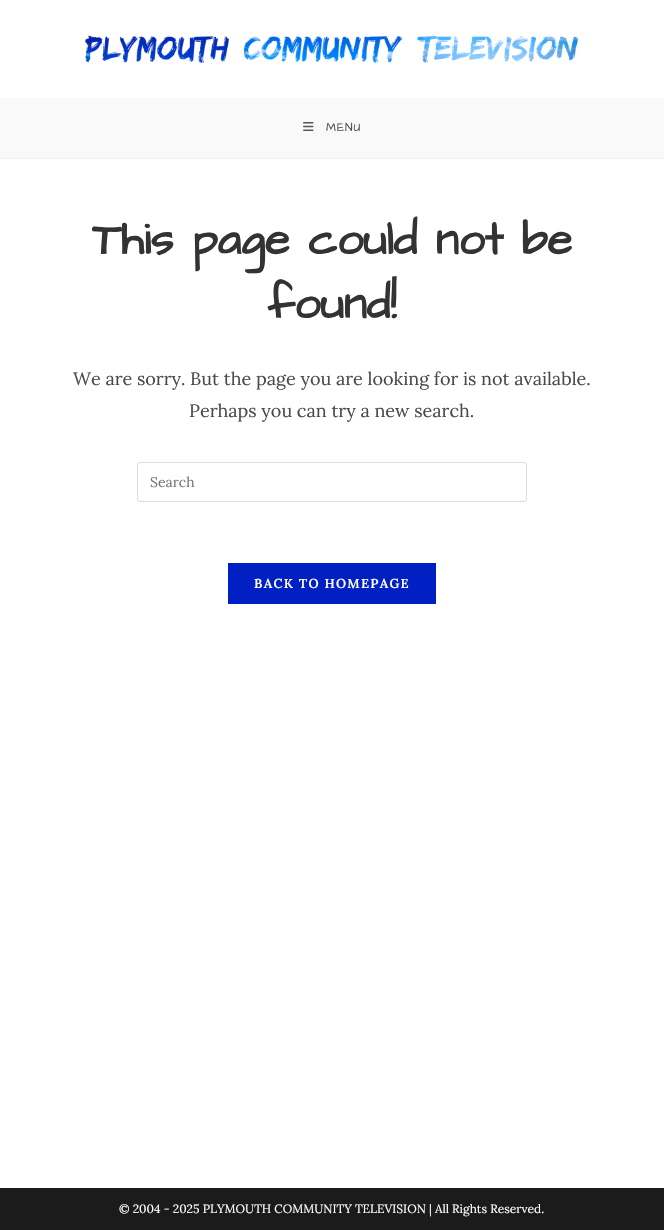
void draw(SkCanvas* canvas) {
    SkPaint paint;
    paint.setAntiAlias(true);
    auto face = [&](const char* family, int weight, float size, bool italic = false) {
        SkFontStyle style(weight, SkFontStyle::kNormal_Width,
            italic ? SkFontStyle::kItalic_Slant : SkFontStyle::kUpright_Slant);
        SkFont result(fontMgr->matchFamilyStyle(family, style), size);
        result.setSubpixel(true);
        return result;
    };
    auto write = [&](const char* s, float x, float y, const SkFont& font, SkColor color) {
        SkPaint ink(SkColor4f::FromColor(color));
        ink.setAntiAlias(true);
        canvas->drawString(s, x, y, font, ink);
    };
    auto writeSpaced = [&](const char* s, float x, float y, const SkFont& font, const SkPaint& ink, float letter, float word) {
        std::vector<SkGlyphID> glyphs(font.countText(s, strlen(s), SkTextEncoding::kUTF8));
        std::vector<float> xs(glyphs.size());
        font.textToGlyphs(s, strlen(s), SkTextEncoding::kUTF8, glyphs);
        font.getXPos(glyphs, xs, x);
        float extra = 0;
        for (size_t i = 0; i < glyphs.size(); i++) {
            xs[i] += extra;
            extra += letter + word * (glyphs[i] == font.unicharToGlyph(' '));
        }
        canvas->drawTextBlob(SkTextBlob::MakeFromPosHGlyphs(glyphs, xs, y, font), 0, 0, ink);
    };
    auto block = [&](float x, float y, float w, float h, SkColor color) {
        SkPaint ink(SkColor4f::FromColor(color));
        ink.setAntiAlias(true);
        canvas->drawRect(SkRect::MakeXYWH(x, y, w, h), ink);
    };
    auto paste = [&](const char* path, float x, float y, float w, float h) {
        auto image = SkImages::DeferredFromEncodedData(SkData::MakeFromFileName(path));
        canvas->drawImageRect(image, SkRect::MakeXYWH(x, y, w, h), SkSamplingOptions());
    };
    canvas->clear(SK_ColorWHITE);
    block(0, 158, 664, 1, SkColorSetRGB(241, 241, 241));
    paste("pic1.png", 85, 35, 494, 29);
    block(0, 98, 664, 60, SkColorSetRGB(249, 249, 249));
    paste("pic2.png", 303, 122, 11, 9);
    auto kFont1 = face("Architects Daughter", 400, 12);
    paint.setColor(SkColorSetRGB(85, 85, 85));
    writeSpaced("MENU", 326, 131, kFont1, paint, 1, 0);
    auto kFont2 = face("Architects Daughter", 700, 46);
    write("This page could not be", 92, 254, kFont2, SkColorSetRGB(51, 51, 51));
    write("found!", 267, 318, kFont2, SkColorSetRGB(51, 51, 51));
    auto kFont3 = face("Lora", 400, 18);
    write("We are sorry. But the page you are looking for is not available.", 73, 385, kFont3, SkColorSetRGB(74, 74, 74));
    write("Perhaps you can try a new search.", 189, 417, kFont3, SkColorSetRGB(74, 74, 74));
    paint.setStyle(SkPaint::kStroke_Style);
    paint.setStrokeWidth(1);
    paint.setColor(SkColorSetRGB(221, 221, 221));
    canvas->drawRoundRect(SkRect::MakeXYWH(137.5f, 462.5f, 389, 39), 2.5f, 2.5f, paint);
    auto kFont4 = face("Lora", 400, 14);
    write("Search", 150, 487, kFont4, SkColorSetRGB(117, 117, 117));
    block(228, 563, 208, 41, SkColorSetRGB(0, 32, 196));
    auto kFont5 = face("Lora", 600, 13);
    paint.setStyle(SkPaint::kFill_Style);
    paint.setColor(SK_ColorWHITE);
    writeSpaced("BACK TO HOMEPAGE", 254, 588, kFont5, paint, 1.25f, 0);
    block(0, 1188, 664, 42, SkColorSetRGB(27, 27, 27));
    auto kFont6 = face("Lora", 400, 12);
    write("© 2004 - 2025 PLYMOUTH COMMUNITY TELEVISION | All Rights Reserved.", 119, 1213, kFont6, SK_ColorWHITE);
}
